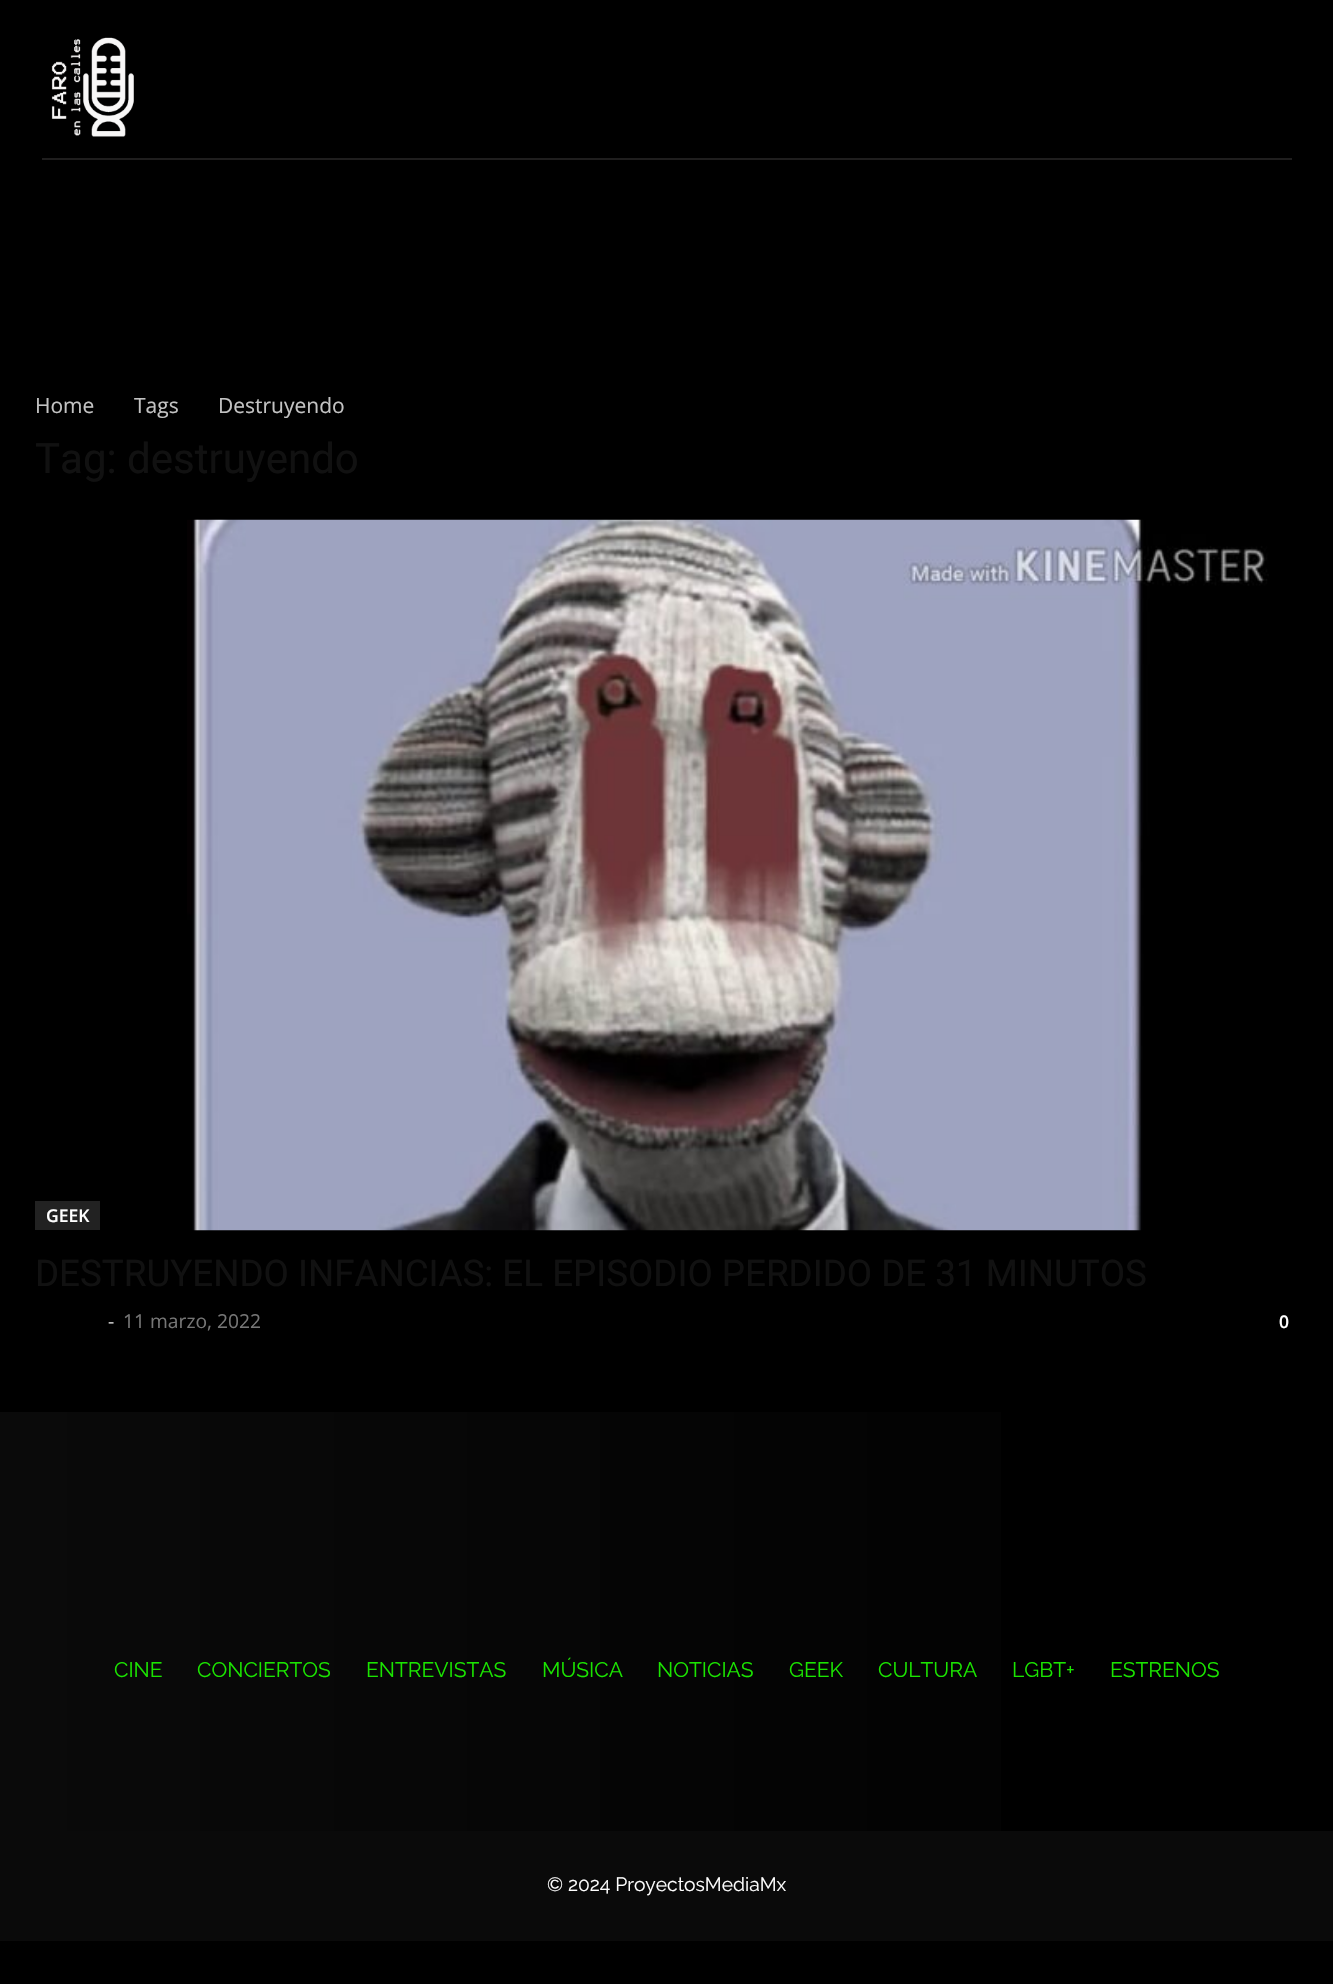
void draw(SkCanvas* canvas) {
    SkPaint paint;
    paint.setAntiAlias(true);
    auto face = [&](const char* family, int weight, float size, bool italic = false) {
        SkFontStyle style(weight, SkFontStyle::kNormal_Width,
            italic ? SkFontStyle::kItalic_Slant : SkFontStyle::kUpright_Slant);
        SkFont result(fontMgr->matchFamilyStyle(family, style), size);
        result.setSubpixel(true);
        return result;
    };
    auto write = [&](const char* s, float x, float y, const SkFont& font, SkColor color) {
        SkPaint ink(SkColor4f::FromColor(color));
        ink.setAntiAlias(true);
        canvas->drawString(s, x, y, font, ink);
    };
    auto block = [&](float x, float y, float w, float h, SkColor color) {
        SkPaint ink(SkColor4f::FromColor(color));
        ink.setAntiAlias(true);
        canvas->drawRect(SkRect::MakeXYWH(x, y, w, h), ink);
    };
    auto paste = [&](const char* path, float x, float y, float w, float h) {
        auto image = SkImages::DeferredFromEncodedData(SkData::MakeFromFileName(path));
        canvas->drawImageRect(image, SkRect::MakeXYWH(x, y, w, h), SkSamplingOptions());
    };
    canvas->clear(SK_ColorBLACK);
    paste("pic1.png", 51, 37, 83, 100);
    block(42, 158, 1250, 2, SkColorSetRGB(31, 30, 30));
    auto kFont1 = face("Open Sans", 400, 21);
    write("Home", 35, 413, kFont1, SkColorSetRGB(195, 195, 195));
    write("Tags", 134, 413, kFont1, SkColorSetRGB(195, 195, 195));
    write("Destruyendo", 218, 413, kFont1, SkColorSetRGB(195, 195, 195));
    auto kFont2 = face("Roboto", 400, 42);
    write("Tag: destruyendo", 35, 473, kFont2, SkColorSetRGB(17, 17, 17));
    block(35, 1201, 65, 29, SkColorSetRGB(34, 34, 34));
    auto kFont3 = face("Open Sans", 600, 17.5f);
    write("GEEK", 46, 1222, kFont3, SK_ColorWHITE);
    paste("pic2.png", 187, 519, 1082, 712);
    auto kFont4 = face("Roboto", 400, 36.75f);
    write("DESTRUYENDO INFANCIAS: EL EPISODIO PERDIDO DE 31 MINUTOS", 35, 1286, kFont4, SkColorSetRGB(17, 17, 17));
    auto kFont5 = face("Open Sans", 400, 19.25f);
    write("-", 108, 1328, kFont5, SkColorSetRGB(204, 204, 204));
    write("11 marzo, 2022", 123, 1328, kFont5, SkColorSetRGB(118, 118, 118));
    write("0", 1279, 1328, kFont3, SK_ColorWHITE);
    {
        const SkColor colors[] = {SK_ColorBLACK, SkColorSetRGB(10, 10, 10)};
        const float stops[] = {0, 1};
        const SkPoint ends[] = {{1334, 1621}, {0, 1621}};
        paint.setShader(SkGradientShader::MakeLinear(ends, colors, stops, 2, SkTileMode::kClamp));
        paint.setAlpha(255);
    }
    canvas->drawRect(SkRect::MakeXYWH(0, 1412, 1001, 419), paint);
    auto kFont6 = face("Raleway", 100, 21);
    write("CINE", 114, 1677, kFont6, SkColorSetRGB(26, 229, 0));
    write("CONCIERTOS", 197, 1677, kFont6, SkColorSetRGB(26, 229, 0));
    write("ENTREVISTAS", 366, 1677, kFont6, SkColorSetRGB(26, 229, 0));
    write("MÚSICA", 542, 1677, kFont6, SkColorSetRGB(26, 229, 0));
    write("NOTICIAS", 657, 1677, kFont6, SkColorSetRGB(26, 229, 0));
    write("GEEK", 789, 1677, kFont6, SkColorSetRGB(26, 229, 0));
    write("CULTURA", 878, 1677, kFont6, SkColorSetRGB(26, 229, 0));
    write("LGBT+", 1012, 1677, kFont6, SkColorSetRGB(26, 229, 0));
    write("ESTRENOS", 1110, 1677, kFont6, SkColorSetRGB(26, 229, 0));
    block(0, 1831, 1333, 110, SkColorSetRGB(10, 10, 10));
    auto kFont7 = face("Raleway", 100, 19.25f);
    write("© 2024 ProyectosMediaMx", 547, 1891, kFont7, SK_ColorWHITE);
}
